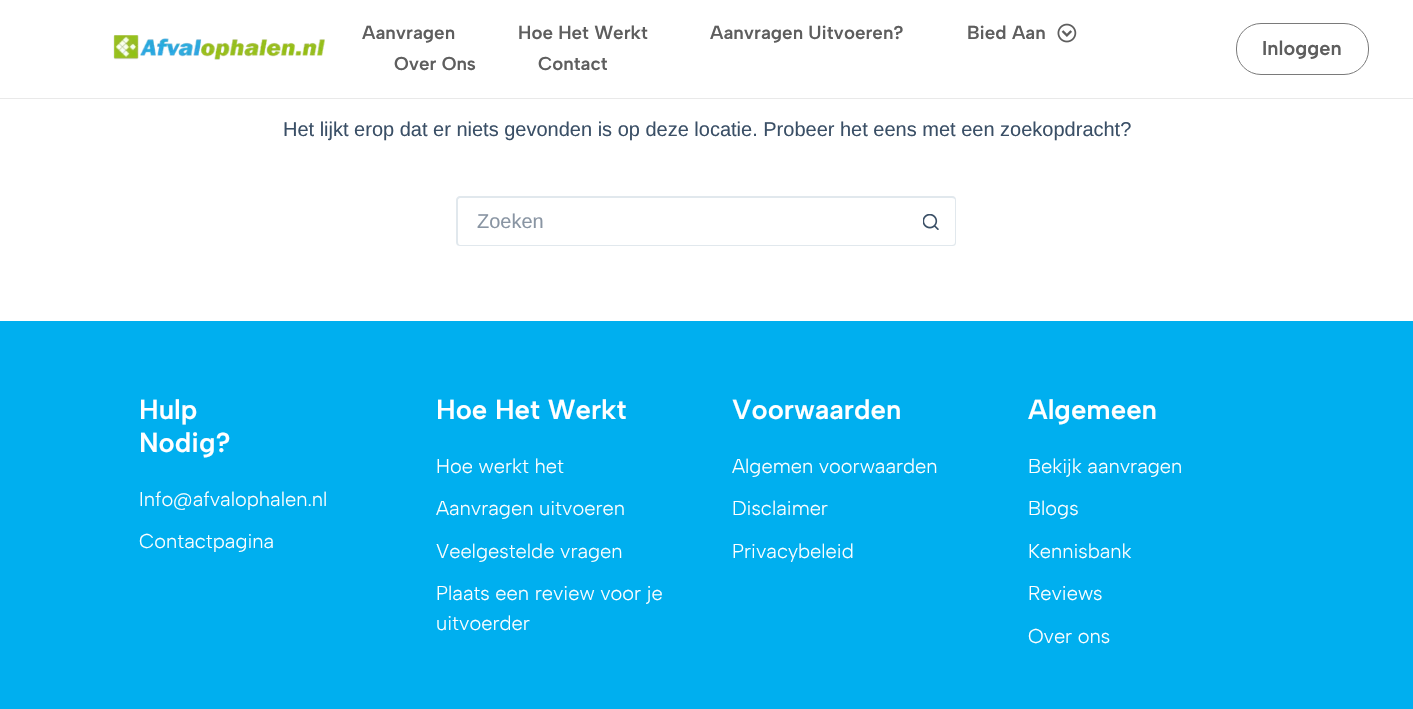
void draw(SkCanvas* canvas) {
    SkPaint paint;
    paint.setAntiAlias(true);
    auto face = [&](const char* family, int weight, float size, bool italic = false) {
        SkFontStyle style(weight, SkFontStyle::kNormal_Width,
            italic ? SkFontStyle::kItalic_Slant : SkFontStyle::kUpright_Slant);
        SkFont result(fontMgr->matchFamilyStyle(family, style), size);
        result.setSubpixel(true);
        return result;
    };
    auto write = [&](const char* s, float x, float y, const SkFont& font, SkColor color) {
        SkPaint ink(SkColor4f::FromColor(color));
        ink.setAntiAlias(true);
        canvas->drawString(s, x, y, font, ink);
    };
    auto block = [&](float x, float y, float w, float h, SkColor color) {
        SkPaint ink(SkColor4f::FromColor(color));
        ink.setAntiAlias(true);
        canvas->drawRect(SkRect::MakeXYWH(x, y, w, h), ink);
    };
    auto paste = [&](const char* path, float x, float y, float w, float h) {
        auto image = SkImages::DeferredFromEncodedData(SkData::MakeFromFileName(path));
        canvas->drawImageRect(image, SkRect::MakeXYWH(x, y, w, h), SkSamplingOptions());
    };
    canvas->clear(SK_ColorWHITE);
    paint.setColor(SkColorSetARGB(128, 0, 0, 0));
    paint.setMaskFilter(SkMaskFilter::MakeBlur(kNormal_SkBlurStyle, 0.5f));
    canvas->drawRect(SkRect::MakeXYWH(0, 0, 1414, 98), paint);
    paint.setMaskFilter(nullptr);
    block(0, 0, 1413, 98, SK_ColorWHITE);
    paste("pic1.png", 113, 35, 212, 25);
    auto kFont1 = face("Albert Sans", 600, 18.75f);
    write("Aanvragen", 362, 39, kFont1, SkColorSetRGB(94, 94, 94));
    write("Hoe Het Werkt", 518, 39, kFont1, SkColorSetRGB(94, 94, 94));
    write("Aanvragen Uitvoeren?", 710, 39, kFont1, SkColorSetRGB(94, 94, 94));
    write("Bied Aan", 967, 39, kFont1, SkColorSetRGB(94, 94, 94));
    paste("pic2.png", 1057, 23, 20, 20);
    write("Over Ons", 394, 70, kFont1, SkColorSetRGB(94, 94, 94));
    write("Contact", 538, 70, kFont1, SkColorSetRGB(94, 94, 94));
    paint.setStyle(SkPaint::kStroke_Style);
    paint.setStrokeWidth(1);
    paint.setColor(SkColorSetRGB(122, 122, 122));
    canvas->drawRoundRect(SkRect::MakeXYWH(1236.5f, 23.5f, 132, 51), 24.5f, 24.5f, paint);
    auto kFont2 = face("Albert Sans", 600, 20);
    write("Inloggen", 1262, 55, kFont2, SkColorSetRGB(94, 94, 94));
    auto kFont3 = face("Liberation Sans", 400, 20);
    write("Het lijkt erop dat er niets gevonden is op deze locatie. Probeer het eens met een zoekopdracht?", 283, 136, kFont3, SkColorSetRGB(58, 79, 102));
    paint.setStyle(SkPaint::kFill_Style);
    paint.setColor(SkColorSetRGB(225, 232, 237));
    canvas->drawPath(SkPathBuilder(SkPathFillType::kEvenOdd).moveTo(460, 196).lineTo(906, 196).lineTo(906, 246).lineTo(460, 246).cubicTo(458, 246, 456, 245, 456, 242).lineTo(456, 200).cubicTo(456, 198, 458, 196, 460, 196).close().moveTo(460, 198).lineTo(906, 198).lineTo(906, 245).lineTo(460, 245).cubicTo(459, 245, 458, 244, 458, 242).lineTo(458, 200).cubicTo(458, 199, 459, 198, 460, 198).close().detach(), paint);
    write("Zoeken", 477, 228, kFont3, SkColorSetRGB(137, 149, 163));
    canvas->drawPath(SkPathBuilder(SkPathFillType::kEvenOdd).moveTo(906, 196).lineTo(952, 196).cubicTo(955, 196, 956, 198, 956, 200).lineTo(956, 242).cubicTo(956, 245, 955, 246, 952, 246).lineTo(906, 246).close().moveTo(906, 198).lineTo(952, 198).cubicTo(954, 198, 955, 199, 955, 200).lineTo(955, 242).cubicTo(955, 244, 954, 245, 952, 245).lineTo(906, 245).close().detach(), paint);
    paste("pic3.png", 923, 214, 16, 16);
    block(0, 321, 1413, 388, SkColorSetRGB(0, 175, 239));
    auto kFont4 = face("Albert Sans", 600, 27.5f);
    write("Hulp", 139, 419, kFont4, SK_ColorWHITE);
    write("Nodig?", 139, 452, kFont4, SK_ColorWHITE);
    auto kFont5 = face("Albert Sans", 300, 20);
    write("Info@afvalophalen.nl", 139, 506, kFont5, SK_ColorWHITE);
    write("Contactpagina", 139, 548, kFont5, SK_ColorWHITE);
    write("Hoe Het Werkt", 436, 419, kFont4, SK_ColorWHITE);
    write("Hoe werkt het", 436, 473, kFont5, SK_ColorWHITE);
    write("Aanvragen uitvoeren", 436, 515, kFont5, SK_ColorWHITE);
    write("Veelgestelde vragen", 436, 558, kFont5, SK_ColorWHITE);
    write("Plaats een review voor je", 436, 600, kFont5, SK_ColorWHITE);
    write("uitvoerder", 436, 630, kFont5, SK_ColorWHITE);
    write("Voorwaarden", 732, 419, kFont4, SK_ColorWHITE);
    write("Algemen voorwaarden", 732, 473, kFont5, SK_ColorWHITE);
    write("Disclaimer", 732, 515, kFont5, SK_ColorWHITE);
    write("Privacybeleid", 732, 558, kFont5, SK_ColorWHITE);
    write("Algemeen", 1028, 419, kFont4, SK_ColorWHITE);
    write("Bekijk aanvragen", 1028, 473, kFont5, SK_ColorWHITE);
    write("Blogs", 1028, 515, kFont5, SK_ColorWHITE);
    write("Kennisbank", 1028, 558, kFont5, SK_ColorWHITE);
    write("Reviews", 1028, 600, kFont5, SK_ColorWHITE);
    write("Over ons", 1028, 643, kFont5, SK_ColorWHITE);
}
